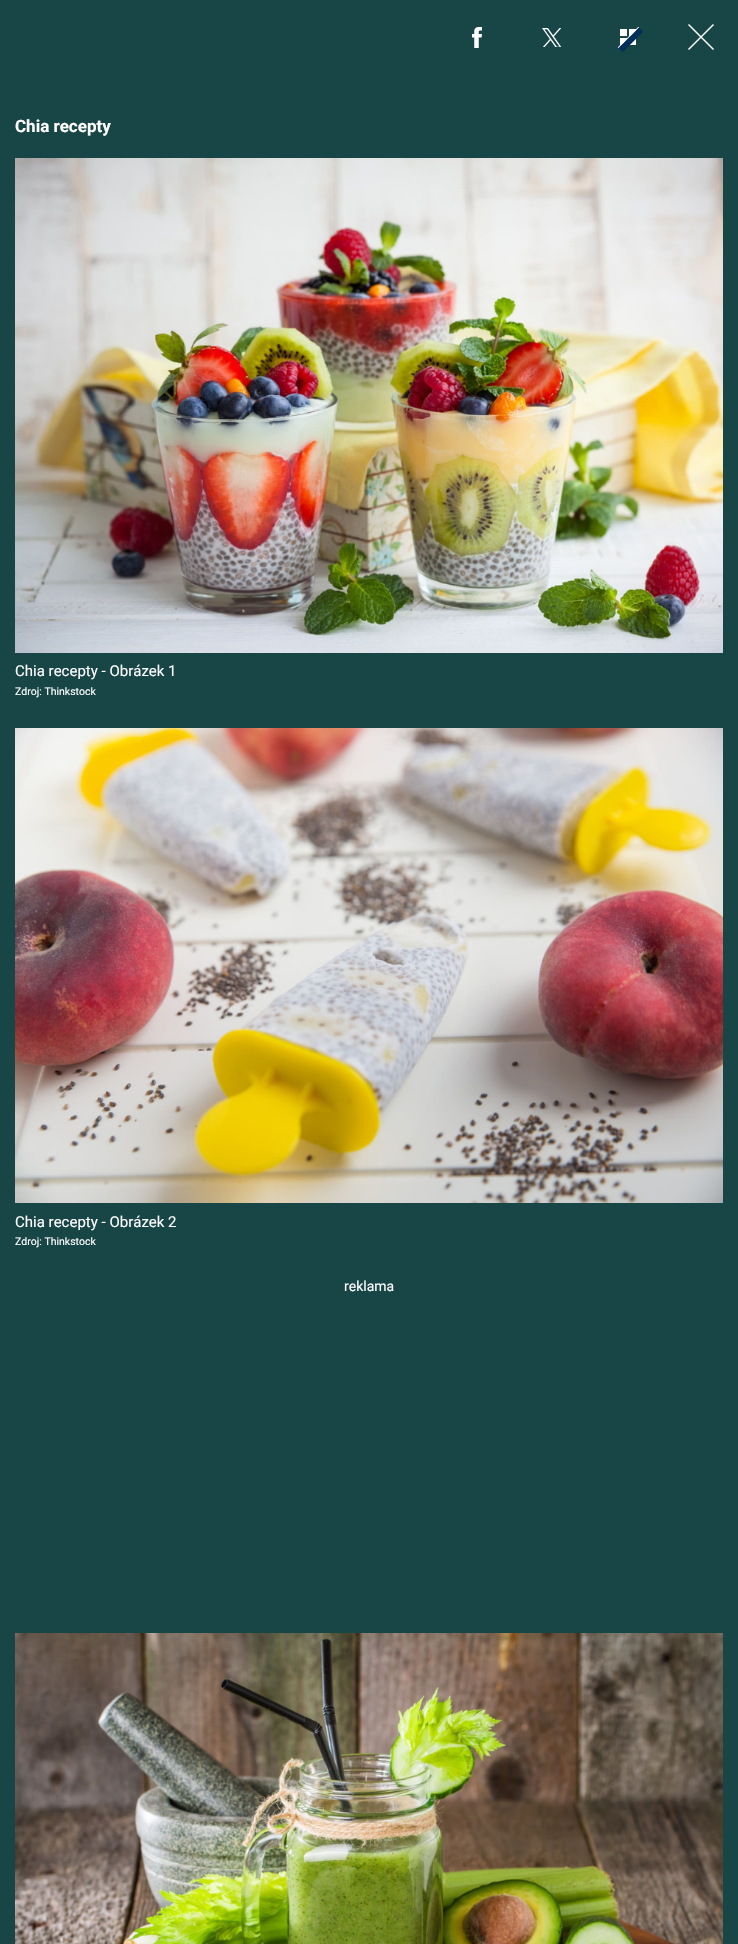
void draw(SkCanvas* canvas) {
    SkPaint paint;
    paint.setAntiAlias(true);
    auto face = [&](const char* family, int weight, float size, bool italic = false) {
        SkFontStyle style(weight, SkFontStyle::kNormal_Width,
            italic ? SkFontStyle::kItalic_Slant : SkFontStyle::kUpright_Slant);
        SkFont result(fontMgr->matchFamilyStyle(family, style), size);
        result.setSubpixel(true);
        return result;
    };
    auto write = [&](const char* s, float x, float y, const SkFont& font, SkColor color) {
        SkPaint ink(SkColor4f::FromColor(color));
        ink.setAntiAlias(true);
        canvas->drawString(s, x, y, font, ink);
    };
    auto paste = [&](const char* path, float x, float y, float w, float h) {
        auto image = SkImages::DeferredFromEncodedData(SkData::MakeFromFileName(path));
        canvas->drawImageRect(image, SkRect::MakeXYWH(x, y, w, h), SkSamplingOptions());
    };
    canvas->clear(SkColorSetRGB(24, 69, 70));
    paste("pic1.png", 472, 27, 10, 21);
    paste("pic2.png", 542, 28, 19, 19);
    paste("pic3.png", 617, 26, 26, 26);
    paint.setStyle(SkPaint::kStroke_Style);
    paint.setStrokeWidth(1.5f);
    paint.setColor(SK_ColorWHITE);
    canvas->drawPath(SkPathBuilder().moveTo(688.5f, 24.5f).lineTo(713.5f, 49.5f).moveTo(713.5f, 24.5f).lineTo(688.5f, 49.5f).detach(), paint);
    auto kFont1 = face("Roboto", 700, 17);
    write("Chia recepty", 15, 132, kFont1, SK_ColorWHITE);
    paste("pic4.png", 15, 158, 708, 495);
    auto kFont2 = face("Roboto", 400, 15);
    write("Chia recepty - Obrázek 1", 15, 676, kFont2, SK_ColorWHITE);
    auto kFont3 = face("Roboto", 400, 10.5f);
    write("Zdroj: Thinkstock", 15, 695, kFont3, SK_ColorWHITE);
    paste("pic5.png", 15, 728, 708, 475);
    write("Chia recepty - Obrázek 2", 15, 1227, kFont2, SK_ColorWHITE);
    write("Zdroj: Thinkstock", 15, 1245, kFont3, SK_ColorWHITE);
    auto kFont4 = face("Roboto", 400, 14);
    write("reklama", 344, 1291, kFont4, SK_ColorWHITE);
    paste("pic6.png", 15, 1633, 708, 311);
}
